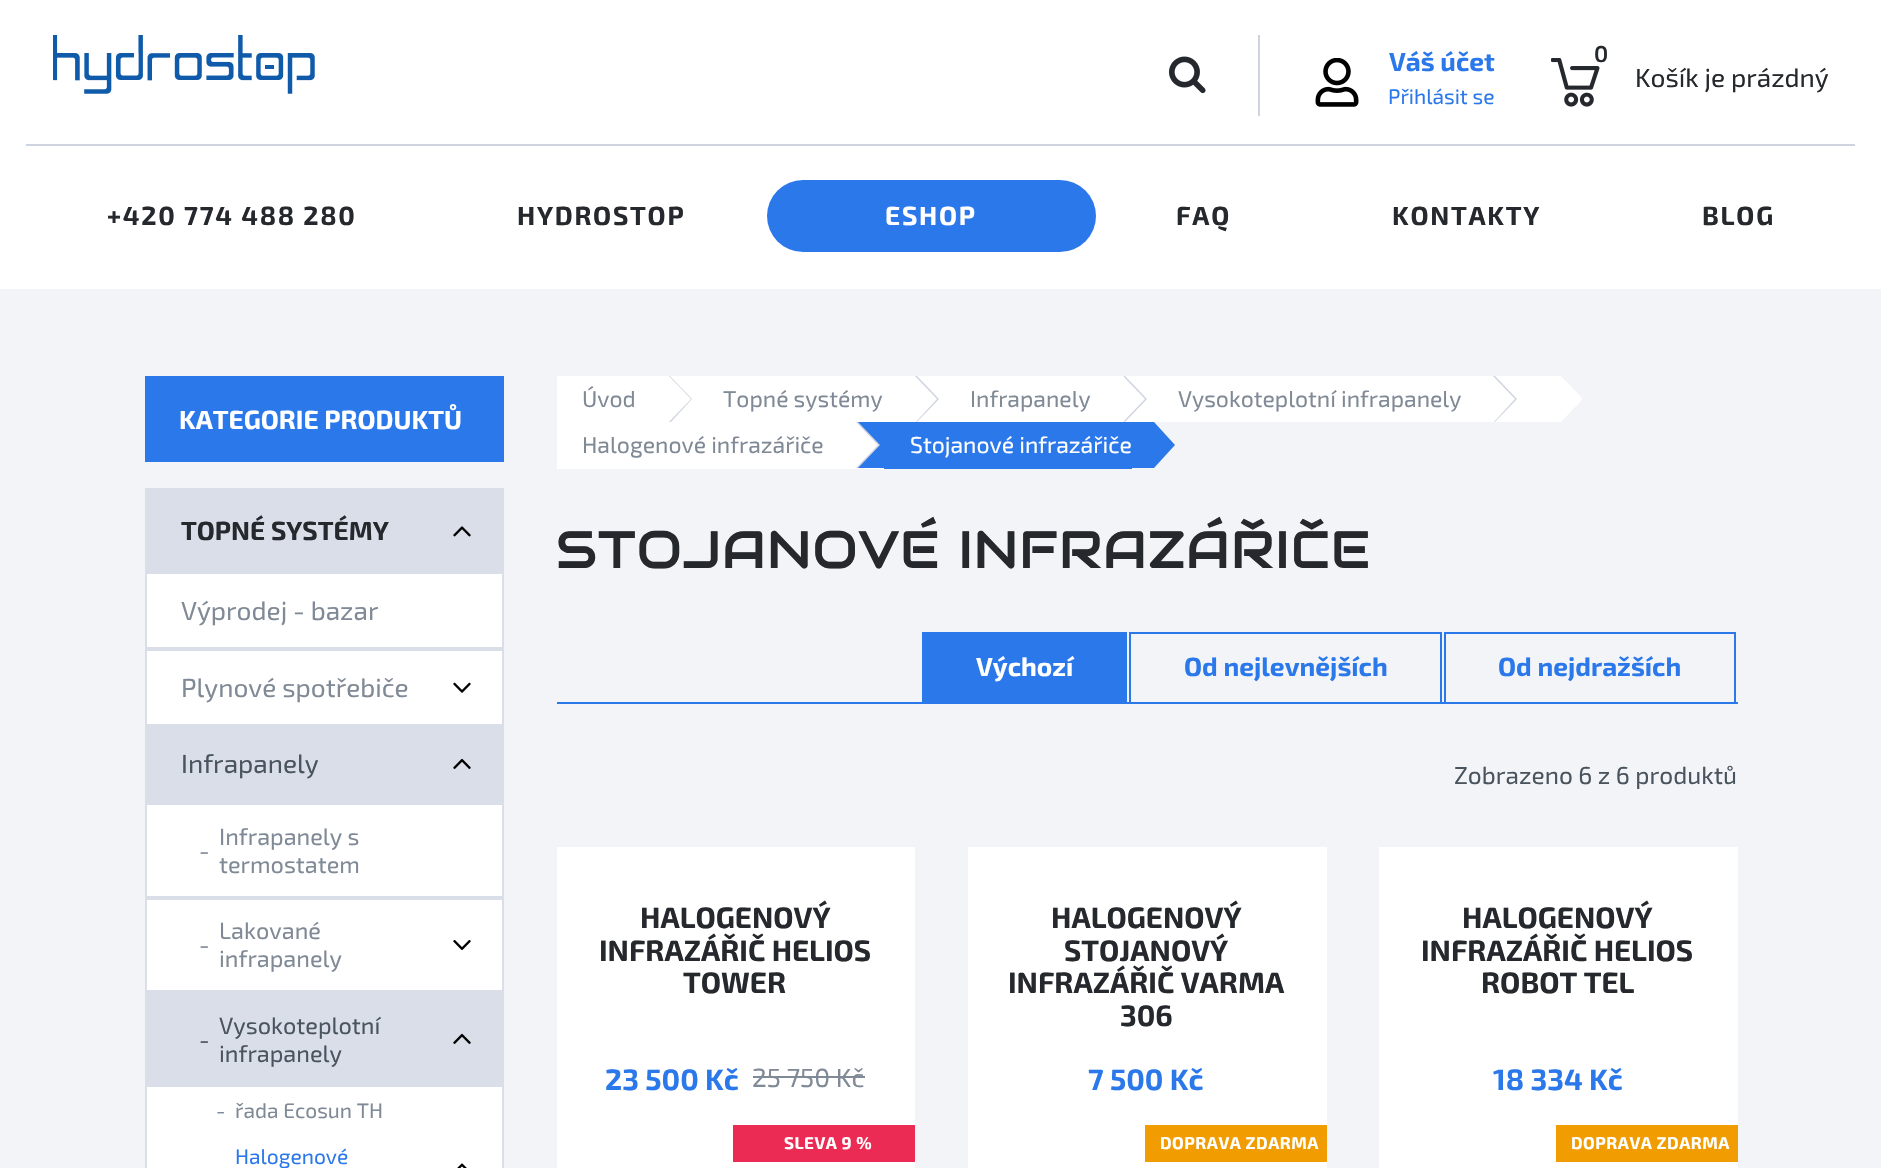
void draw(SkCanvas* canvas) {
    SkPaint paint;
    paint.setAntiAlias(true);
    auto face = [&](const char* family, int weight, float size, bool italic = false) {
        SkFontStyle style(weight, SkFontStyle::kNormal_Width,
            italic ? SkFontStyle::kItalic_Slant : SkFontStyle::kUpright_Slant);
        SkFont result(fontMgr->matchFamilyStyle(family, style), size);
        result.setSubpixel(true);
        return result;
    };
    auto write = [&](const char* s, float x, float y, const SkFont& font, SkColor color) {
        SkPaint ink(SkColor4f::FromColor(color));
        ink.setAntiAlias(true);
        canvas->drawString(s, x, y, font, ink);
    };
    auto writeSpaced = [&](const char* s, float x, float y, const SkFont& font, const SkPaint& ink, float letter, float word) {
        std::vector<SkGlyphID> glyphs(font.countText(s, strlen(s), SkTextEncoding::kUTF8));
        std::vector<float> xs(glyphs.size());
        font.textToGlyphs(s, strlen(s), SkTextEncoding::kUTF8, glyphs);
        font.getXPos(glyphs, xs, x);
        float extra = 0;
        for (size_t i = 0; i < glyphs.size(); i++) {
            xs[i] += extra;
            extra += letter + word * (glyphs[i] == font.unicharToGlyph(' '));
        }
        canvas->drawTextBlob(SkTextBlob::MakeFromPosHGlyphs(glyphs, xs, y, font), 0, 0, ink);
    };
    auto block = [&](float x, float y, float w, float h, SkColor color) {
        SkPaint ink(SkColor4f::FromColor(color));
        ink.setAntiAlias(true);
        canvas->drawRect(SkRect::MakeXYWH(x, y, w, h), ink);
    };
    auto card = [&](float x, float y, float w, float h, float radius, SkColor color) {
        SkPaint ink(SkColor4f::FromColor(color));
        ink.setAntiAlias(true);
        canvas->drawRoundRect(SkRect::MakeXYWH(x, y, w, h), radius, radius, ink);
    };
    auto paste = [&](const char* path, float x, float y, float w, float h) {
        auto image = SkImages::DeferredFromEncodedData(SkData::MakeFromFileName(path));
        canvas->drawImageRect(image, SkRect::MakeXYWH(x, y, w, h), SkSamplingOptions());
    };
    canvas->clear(SK_ColorWHITE);
    paste("pic1.png", 53, 35, 262, 59);
    block(26, 144, 1829, 2, SkColorSetRGB(206, 211, 224));
    block(1258, 35, 2, 81, SkColorSetRGB(206, 211, 224));
    paste("pic2.png", 1169, 56, 37, 38);
    paste("pic3.png", 1315, 58, 44, 49);
    auto kFont1 = face("Exo 2", 700, 26.25f);
    write("Váš účet", 1389, 71, kFont1, SkColorSetRGB(43, 120, 235));
    auto kFont2 = face("Exo 2", 400, 21);
    write("Přihlásit se", 1388, 104, kFont2, SkColorSetRGB(43, 120, 235));
    paste("pic4.png", 1551, 58, 49, 49);
    auto kFont3 = face("Exo 2", 600, 23);
    write("0", 1594, 62, kFont3, SkColorSetRGB(37, 40, 44));
    auto kFont4 = face("Exo 2", 400, 26.25f);
    write("Košík je prázdný", 1635, 87, kFont4, SkColorSetRGB(37, 40, 44));
    paint.setColor(SkColorSetRGB(37, 40, 44));
    writeSpaced("+420 774 488 280", 107, 225, kFont1, paint, 1.75f, 0);
    writeSpaced("HYDROSTOP", 517, 225, kFont1, paint, 1.75f, 0);
    card(767, 180, 329, 72, 36, SkColorSetRGB(43, 120, 235));
    paint.setColor(SK_ColorWHITE);
    writeSpaced("ESHOP", 885, 225, kFont1, paint, 1.75f, 0);
    paint.setColor(SkColorSetRGB(37, 40, 44));
    writeSpaced("FAQ", 1176, 225, kFont1, paint, 1.75f, 0);
    writeSpaced("KONTAKTY", 1392, 225, kFont1, paint, 1.75f, 0);
    writeSpaced("BLOG", 1702, 225, kFont1, paint, 1.75f, 0);
    block(0, 289, 1881, 879, SkColorSetRGB(242, 244, 248));
    block(145, 376, 359, 86, SkColorSetRGB(43, 120, 235));
    write("KATEGORIE PRODUKTŮ", 179, 429, kFont1, SK_ColorWHITE);
    block(145, 488, 359, 84, SkColorSetRGB(218, 222, 233));
    write("TOPNÉ SYSTÉMY", 181, 540, kFont1, SkColorSetRGB(37, 40, 44));
    paste("pic5.png", 453, 526, 18, 11);
    paint.setColor(SK_ColorWHITE);
    canvas->drawRect(SkRect::MakeXYWH(146, 573, 357, 75), paint);
    paint.setStyle(SkPaint::kStroke_Style);
    paint.setStrokeWidth(2);
    paint.setColor(SkColorSetRGB(218, 222, 233));
    canvas->drawRect(SkRect::MakeXYWH(146, 573, 357, 75), paint);
    write("Výprodej - bazar", 181, 620, kFont4, SkColorSetRGB(128, 138, 150));
    paint.setStyle(SkPaint::kFill_Style);
    paint.setColor(SK_ColorWHITE);
    canvas->drawRect(SkRect::MakeXYWH(146, 650, 357, 75), paint);
    paint.setStyle(SkPaint::kStroke_Style);
    paint.setColor(SkColorSetRGB(218, 222, 233));
    canvas->drawRect(SkRect::MakeXYWH(146, 650, 357, 75), paint);
    write("Plynové spotřebiče", 181, 697, kFont4, SkColorSetRGB(128, 138, 150));
    paste("pic6.png", 453, 682, 18, 11);
    block(145, 726, 359, 77, SkColorSetRGB(218, 222, 233));
    write("Infrapanely", 181, 773, kFont4, SkColorSetRGB(74, 84, 94));
    paste("pic7.png", 453, 758, 18, 11);
    paint.setStyle(SkPaint::kFill_Style);
    paint.setColor(SK_ColorWHITE);
    canvas->drawRect(SkRect::MakeXYWH(146, 804, 357, 93), paint);
    paint.setStyle(SkPaint::kStroke_Style);
    paint.setColor(SkColorSetRGB(218, 222, 233));
    canvas->drawRect(SkRect::MakeXYWH(146, 804, 357, 93), paint);
    auto kFont5 = face("Exo 2", 400, 23.5f);
    write("Infrapanely s", 219, 845, kFont5, SkColorSetRGB(128, 138, 150));
    write("-", 199, 859, kFont5, SkColorSetRGB(128, 138, 150));
    write("termostatem", 219, 873, kFont5, SkColorSetRGB(128, 138, 150));
    paint.setStyle(SkPaint::kFill_Style);
    paint.setColor(SK_ColorWHITE);
    canvas->drawRect(SkRect::MakeXYWH(146, 899, 357, 92), paint);
    paint.setStyle(SkPaint::kStroke_Style);
    paint.setColor(SkColorSetRGB(218, 222, 233));
    canvas->drawRect(SkRect::MakeXYWH(146, 899, 357, 92), paint);
    write("Lakované", 219, 939, kFont5, SkColorSetRGB(128, 138, 150));
    write("-", 199, 953, kFont5, SkColorSetRGB(128, 138, 150));
    write("infrapanely", 219, 967, kFont5, SkColorSetRGB(128, 138, 150));
    paste("pic8.png", 453, 940, 18, 10);
    block(145, 992, 359, 95, SkColorSetRGB(218, 222, 233));
    write("Vysokoteplotní", 219, 1034, kFont5, SkColorSetRGB(74, 84, 94));
    write("-", 199, 1048, kFont5, SkColorSetRGB(74, 84, 94));
    write("infrapanely", 219, 1062, kFont5, SkColorSetRGB(74, 84, 94));
    paste("pic9.png", 453, 1033, 18, 11);
    block(147, 1087, 355, 81, SK_ColorWHITE);
    block(502, 1087, 2, 81, SkColorSetRGB(218, 222, 233));
    block(145, 1087, 2, 81, SkColorSetRGB(218, 222, 233));
    write("-", 216, 1118, kFont2, SkColorSetRGB(128, 138, 150));
    write("řada Ecosun TH", 235, 1118, kFont2, SkColorSetRGB(128, 138, 150));
    write("Halogenové", 235, 1164, kFont2, SkColorSetRGB(43, 120, 235));
    paste("pic10.png", 457, 1163, 10, 5);
    block(557, 376, 134, 46, SK_ColorWHITE);
    paint.setStyle(SkPaint::kFill_Style);
    paint.setColor(SkColorSetRGB(206, 211, 224));
    canvas->drawPath(SkPathBuilder().moveTo(734, 376).lineTo(756, 399).lineTo(735, 422).lineTo(669, 422).lineTo(691, 399).lineTo(669, 376).close().detach(), paint);
    auto kFont6 = face("Exo 2", 400, 23);
    write("Úvod", 582, 407, kFont6, SkColorSetRGB(128, 138, 150));
    paint.setColor(SK_ColorWHITE);
    canvas->drawPath(SkPathBuilder().moveTo(736, 376).lineTo(758, 399).lineTo(736, 422).lineTo(671, 422).lineTo(692, 399).lineTo(670, 376).close().detach(), paint);
    block(736, 376, 201, 46, SK_ColorWHITE);
    paint.setColor(SkColorSetRGB(206, 211, 224));
    canvas->drawPath(SkPathBuilder().moveTo(981, 376).lineTo(1003, 399).lineTo(981, 422).lineTo(916, 422).lineTo(937, 399).lineTo(915, 376).close().detach(), paint);
    write("Topné systémy", 723, 407, kFont6, SkColorSetRGB(128, 138, 150));
    paint.setColor(SK_ColorWHITE);
    canvas->drawPath(SkPathBuilder().moveTo(983, 376).lineTo(1005, 399).lineTo(983, 422).lineTo(917, 422).lineTo(939, 399).lineTo(917, 376).close().detach(), paint);
    block(983, 376, 162, 46, SK_ColorWHITE);
    paint.setColor(SkColorSetRGB(206, 211, 224));
    canvas->drawPath(SkPathBuilder().moveTo(1189, 376).lineTo(1211, 399).lineTo(1189, 422).lineTo(1124, 422).lineTo(1124, 421).lineTo(1145, 399).lineTo(1124, 377).lineTo(1124, 376).close().detach(), paint);
    write("Infrapanely", 970, 407, kFont6, SkColorSetRGB(128, 138, 150));
    paint.setColor(SK_ColorWHITE);
    canvas->drawPath(SkPathBuilder().moveTo(1191, 376).lineTo(1213, 399).lineTo(1191, 422).lineTo(1125, 422).lineTo(1147, 399).lineTo(1125, 376).close().detach(), paint);
    block(1191, 376, 324, 46, SK_ColorWHITE);
    paint.setColor(SkColorSetRGB(206, 211, 224));
    canvas->drawPath(SkPathBuilder().moveTo(1559, 376).lineTo(1580, 398).lineTo(1580, 400).lineTo(1559, 422).lineTo(1494, 422).lineTo(1515, 399).lineTo(1493, 376).close().detach(), paint);
    write("Vysokoteplotní infrapanely", 1178, 407, kFont6, SkColorSetRGB(128, 138, 150));
    paint.setColor(SK_ColorWHITE);
    canvas->drawPath(SkPathBuilder().moveTo(1561, 376).lineTo(1582, 398).lineTo(1582, 400).lineTo(1561, 422).lineTo(1495, 422).lineTo(1517, 399).lineTo(1495, 376).close().detach(), paint);
    block(557, 422, 327, 47, SK_ColorWHITE);
    write("Halogenové infrazářiče", 582, 453, kFont6, SkColorSetRGB(128, 138, 150));
    paint.setColor(SkColorSetRGB(206, 211, 224));
    canvas->drawPath(SkPathBuilder().moveTo(922, 422).lineTo(943, 444).lineTo(943, 446).lineTo(922, 468).lineTo(856, 468).lineTo(878, 445).lineTo(856, 422).close().detach(), paint);
    block(884, 422, 248, 47, SkColorSetRGB(43, 120, 235));
    paint.setColor(SkColorSetRGB(43, 120, 235));
    canvas->drawPath(SkPathBuilder().moveTo(924, 422).lineTo(945, 445).lineTo(945, 446).lineTo(924, 468).lineTo(858, 468).lineTo(880, 445).lineTo(858, 422).close().detach(), paint);
    canvas->drawPath(SkPathBuilder().moveTo(1154, 422).lineTo(1175, 445).lineTo(1154, 468).lineTo(1089, 468).lineTo(1089, 467).lineTo(1110, 445).lineTo(1089, 423).lineTo(1089, 422).close().detach(), paint);
    write("Stojanové infrazářiče", 910, 453, kFont6, SK_ColorWHITE);
    auto kFont7 = face("Audiowide", 400, 52.5f);
    paint.setColor(SkColorSetRGB(37, 40, 44));
    writeSpaced("STOJANOVÉ INFRAZÁŘIČE", 556, 568, kFont7, paint, 0.9f, 0);
    block(557, 702, 1181, 2, SkColorSetRGB(43, 120, 235));
    block(922, 632, 205, 70, SkColorSetRGB(43, 120, 235));
    write("Výchozí", 976, 676, kFont1, SK_ColorWHITE);
    paint.setStyle(SkPaint::kStroke_Style);
    paint.setColor(SkColorSetRGB(43, 120, 235));
    canvas->drawRect(SkRect::MakeXYWH(1130, 633, 311, 70), paint);
    write("Od nejlevnějších", 1184, 676, kFont1, SkColorSetRGB(43, 120, 235));
    canvas->drawRect(SkRect::MakeXYWH(1445, 633, 290, 70), paint);
    write("Od nejdražších", 1498, 676, kFont1, SkColorSetRGB(43, 120, 235));
    auto kFont8 = face("Exo 2", 400, 24.5f);
    write("Zobrazeno 6 z 6 produktů", 1454, 784, kFont8, SkColorSetRGB(74, 84, 94));
    block(557, 847, 358, 321, SK_ColorWHITE);
    auto kFont9 = face("Exo 2", 700, 29.5f);
    write("HALOGENOVÝ", 640, 928, kFont9, SkColorSetRGB(37, 40, 44));
    write("INFRAZÁŘIČ HELIOS", 599, 961, kFont9, SkColorSetRGB(37, 40, 44));
    write("TOWER", 683, 993, kFont9, SkColorSetRGB(37, 40, 44));
    write("23 500 Kč", 605, 1090, kFont9, SkColorSetRGB(43, 120, 235));
    write("25 750 Kč", 752, 1087, kFont4, SkColorSetRGB(128, 138, 150));
    block(753, 1076, 112, 2, SkColorSetRGB(128, 138, 150));
    block(733, 1125, 182, 37, SkColorSetRGB(235, 43, 84));
    auto kFont10 = face("Exo 2", 700, 17);
    paint.setStyle(SkPaint::kFill_Style);
    paint.setColor(SK_ColorWHITE);
    writeSpaced("SLEVA 9 %", 784, 1149, kFont10, paint, 0.5f, 0);
    block(968, 847, 359, 321, SK_ColorWHITE);
    write("HALOGENOVÝ", 1051, 928, kFont9, SkColorSetRGB(37, 40, 44));
    write("STOJANOVÝ", 1064, 961, kFont9, SkColorSetRGB(37, 40, 44));
    write("INFRAZÁŘIČ VARMA", 1008, 993, kFont9, SkColorSetRGB(37, 40, 44));
    write("306", 1120, 1026, kFont9, SkColorSetRGB(37, 40, 44));
    write("7 500 Kč", 1088, 1090, kFont9, SkColorSetRGB(43, 120, 235));
    block(1145, 1125, 182, 37, SkColorSetRGB(241, 157, 1));
    writeSpaced("DOPRAVA ZDARMA", 1160, 1149, kFont10, paint, 0.5f, 0);
    block(1379, 847, 359, 321, SK_ColorWHITE);
    write("HALOGENOVÝ", 1462, 928, kFont9, SkColorSetRGB(37, 40, 44));
    write("INFRAZÁŘIČ HELIOS", 1421, 961, kFont9, SkColorSetRGB(37, 40, 44));
    write("ROBOT TEL", 1481, 993, kFont9, SkColorSetRGB(37, 40, 44));
    write("18 334 Kč", 1493, 1090, kFont9, SkColorSetRGB(43, 120, 235));
    block(1556, 1125, 182, 37, SkColorSetRGB(241, 157, 1));
    writeSpaced("DOPRAVA ZDARMA", 1571, 1149, kFont10, paint, 0.5f, 0);
}
